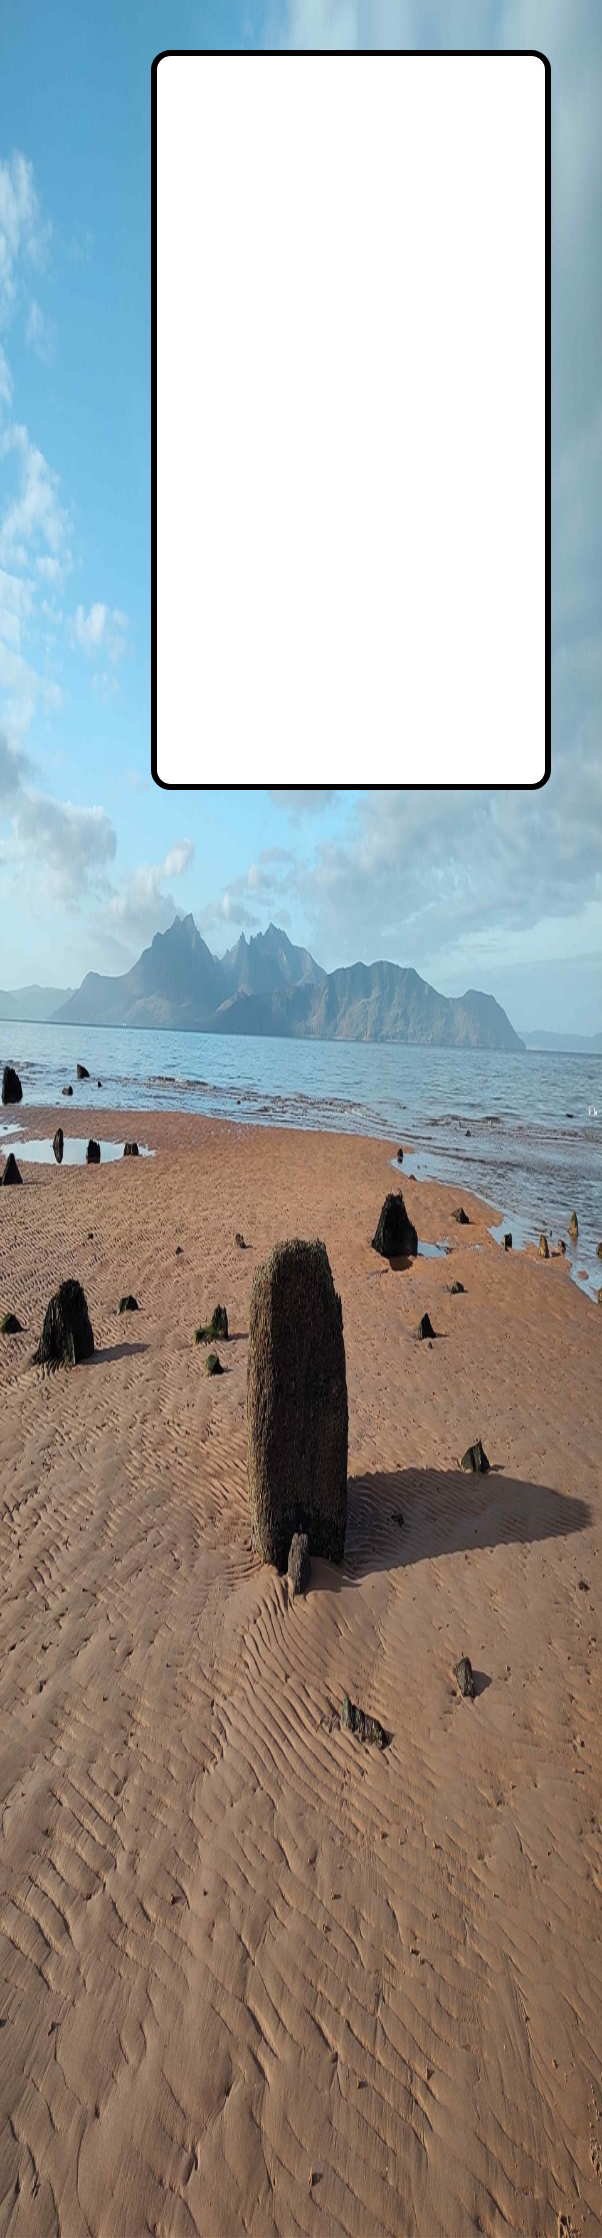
void draw(SkCanvas* canvas) {
    SkPaint paint;
    paint.setAntiAlias(true);
    auto paste = [&](const char* path, float x, float y, float w, float h) {
        auto image = SkImages::DeferredFromEncodedData(SkData::MakeFromFileName(path));
        canvas->drawImageRect(image, SkRect::MakeXYWH(x, y, w, h), SkSamplingOptions());
    };
    canvas->clear(SK_ColorWHITE);
    paste("pic1.png", 0, 0, 602, 2238);
    paint.setColor(SK_ColorWHITE);
    canvas->drawRoundRect(SkRect::MakeXYWH(154, 53, 394, 734), 17, 17, paint);
    paint.setStyle(SkPaint::kStroke_Style);
    paint.setStrokeWidth(6);
    paint.setColor(SK_ColorBLACK);
    canvas->drawRoundRect(SkRect::MakeXYWH(154, 53, 394, 734), 17, 17, paint);
}
